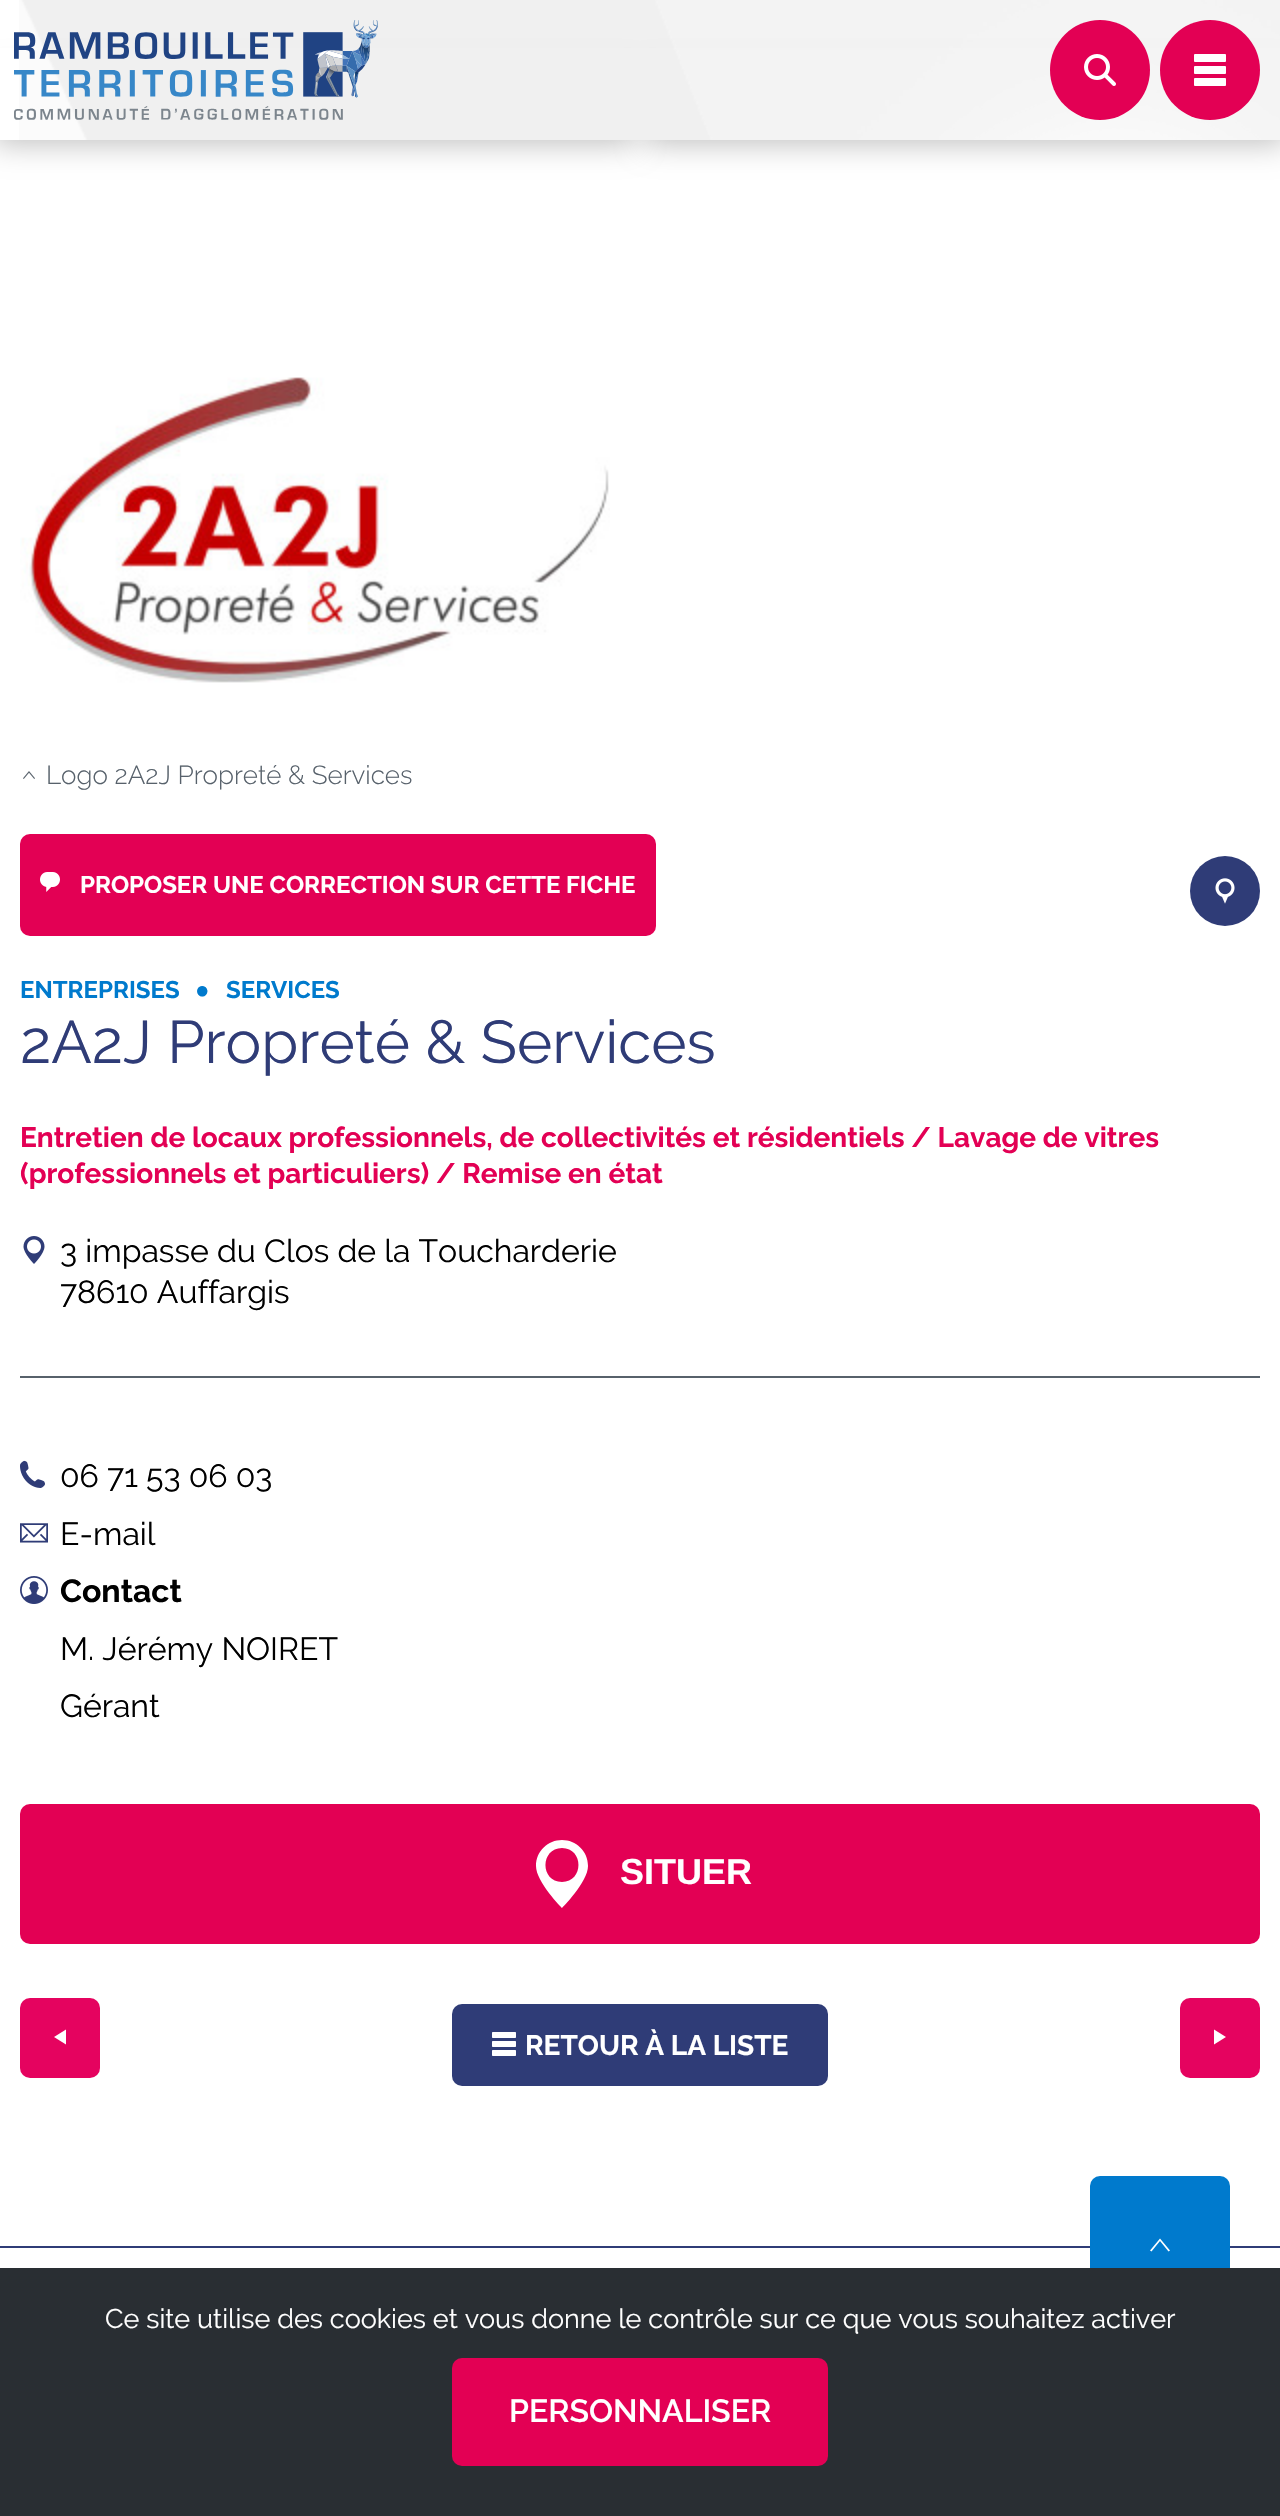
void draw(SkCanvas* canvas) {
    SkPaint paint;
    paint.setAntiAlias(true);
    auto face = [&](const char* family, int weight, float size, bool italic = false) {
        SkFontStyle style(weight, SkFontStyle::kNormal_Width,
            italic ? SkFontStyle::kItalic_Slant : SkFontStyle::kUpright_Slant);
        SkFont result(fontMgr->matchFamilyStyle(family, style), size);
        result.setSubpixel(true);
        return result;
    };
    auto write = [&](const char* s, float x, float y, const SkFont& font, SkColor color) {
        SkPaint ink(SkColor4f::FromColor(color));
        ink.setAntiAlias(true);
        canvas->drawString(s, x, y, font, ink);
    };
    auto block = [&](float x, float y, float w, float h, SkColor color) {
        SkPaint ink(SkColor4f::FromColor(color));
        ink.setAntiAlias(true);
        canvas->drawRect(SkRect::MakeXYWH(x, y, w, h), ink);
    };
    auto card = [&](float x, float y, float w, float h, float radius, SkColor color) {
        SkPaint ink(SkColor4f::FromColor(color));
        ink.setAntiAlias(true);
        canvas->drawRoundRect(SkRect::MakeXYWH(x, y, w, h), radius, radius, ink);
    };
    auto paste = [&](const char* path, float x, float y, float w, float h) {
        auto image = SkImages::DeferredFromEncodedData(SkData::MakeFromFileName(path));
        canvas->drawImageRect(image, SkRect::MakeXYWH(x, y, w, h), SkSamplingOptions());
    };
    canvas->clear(SK_ColorWHITE);
    paint.setColor(SkColorSetARGB(64, 0, 0, 0));
    paint.setMaskFilter(SkMaskFilter::MakeBlur(kNormal_SkBlurStyle, 15));
    canvas->drawRect(SkRect::MakeXYWH(-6, 74, 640, 70), paint);
    paint.setMaskFilter(nullptr);
    paint.setMaskFilter(SkMaskFilter::MakeBlur(kNormal_SkBlurStyle, 15));
    canvas->drawRect(SkRect::MakeXYWH(646, 74, 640, 70), paint);
    paint.setMaskFilter(nullptr);
    block(0, 48, 1280, 92, SK_ColorWHITE);
    paste("pic1.png", 19, 0, 1261, 140);
    paste("pic2.png", 14, 20, 364, 100);
    paint.setColor(SkColorSetRGB(227, 0, 84));
    canvas->drawCircle(1100, 70, 50, paint);
    paste("pic3.png", 1084, 54, 32, 32);
    canvas->drawCircle(1210, 70, 50, paint);
    paste("pic4.png", 1194, 54, 32, 32);
    paint.setColor(SkColorSetRGB(47, 60, 119));
    canvas->drawCircle(1225, 891, 35, paint);
    paste("pic5.png", 1215, 878, 20, 26);
    paste("pic6.png", 20, 377, 590, 306);
    paste("pic7.png", 23, 771, 12, 8);
    auto kFont1 = face("Raleway", 300, 26);
    write("Logo 2A2J Propreté & Services", 46, 784, kFont1, SkColorSetRGB(87, 97, 107));
    card(20, 834, 636, 102, 10, SkColorSetRGB(227, 0, 84));
    paste("pic8.png", 40, 872, 20, 20);
    auto kFont2 = face("Raleway", 700, 24);
    write("PROPOSER UNE CORRECTION SUR CETTE FICHE", 80, 893, kFont2, SK_ColorWHITE);
    write("ENTREPRISES", 20, 998, kFont2, SkColorSetRGB(0, 122, 205));
    auto kFont3 = face("Liberation Sans", 700, 24);
    write("●", 195, 998, kFont3, SkColorSetRGB(0, 122, 205));
    write("SERVICES", 226, 998, kFont2, SkColorSetRGB(0, 122, 205));
    auto kFont4 = face("Raleway", 400, 60);
    write("2A2J Propreté & Services", 20, 1063, kFont4, SkColorSetRGB(47, 60, 119));
    auto kFont5 = face("Raleway", 700, 28);
    write("Entretien de locaux professionnels, de collectivités et résidentiels / Lavage de vitres", 20, 1147, kFont5, SkColorSetRGB(227, 0, 84));
    write("(professionnels et particuliers) / Remise en état", 20, 1183, kFont5, SkColorSetRGB(227, 0, 84));
    paste("pic9.png", 23, 1236, 22, 28);
    auto kFont6 = face("Raleway", 400, 32);
    write("3 impasse du Clos de la Toucharderie", 60, 1262, kFont6, SK_ColorBLACK);
    write("78610 Auffargis", 60, 1303, kFont6, SK_ColorBLACK);
    block(20, 1376, 1240, 2, SkColorSetRGB(87, 97, 107));
    paste("pic10.png", 20, 1460, 25, 28);
    write("06 71 53 06 03", 60, 1487, kFont6, SK_ColorBLACK);
    paste("pic11.png", 20, 1523, 28, 20);
    write("E-mail", 60, 1545, kFont6, SK_ColorBLACK);
    paste("pic12.png", 20, 1576, 28, 28);
    auto kFont7 = face("Raleway", 700, 32);
    write("Contact", 60, 1602, kFont7, SK_ColorBLACK);
    write("M. Jérémy NOIRET", 60, 1660, kFont6, SK_ColorBLACK);
    write("Gérant", 60, 1717, kFont6, SK_ColorBLACK);
    card(20, 1804, 1240, 140, 10, SkColorSetRGB(227, 0, 84));
    paint.setColor(SK_ColorWHITE);
    canvas->drawPath(SkPathBuilder().moveTo(562, 1840).cubicTo(576, 1840, 588, 1851, 588, 1866).cubicTo(588, 1882, 562, 1908, 562, 1908).cubicTo(562, 1908, 536, 1882, 536, 1866).cubicTo(536, 1851, 548, 1840, 562, 1840).close().moveTo(562, 1882).cubicTo(584, 1882, 584, 1848, 562, 1848).cubicTo(540, 1848, 540, 1882, 562, 1882).close().detach(), paint);
    auto kFont8 = face("Liberation Sans", 700, 36);
    write("SITUER", 620, 1884, kFont8, SK_ColorWHITE);
    card(20, 1998, 80, 80, 10, SkColorSetRGB(229, 3, 95));
    canvas->drawPath(SkPathBuilder().moveTo(54, 2037).lineTo(66, 2029.5f).lineTo(66, 2044.5f).close().detach(), paint);
    card(452, 2004, 376, 82, 10, SkColorSetRGB(47, 60, 119));
    paste("pic13.png", 492, 2032, 24, 24);
    write("RETOUR À LA LISTE", 525, 2055, kFont5, SK_ColorWHITE);
    card(1180, 1998, 80, 80, 10, SkColorSetRGB(229, 3, 95));
    canvas->drawPath(SkPathBuilder().moveTo(1214, 2029.5f).lineTo(1226, 2037).lineTo(1214, 2044.5f).close().detach(), paint);
    block(0, 2246, 1280, 2, SkColorSetRGB(47, 60, 119));
    card(1090, 2176, 140, 140, 10, SkColorSetRGB(0, 122, 205));
    canvas->drawPath(SkPathBuilder().moveTo(1160, 2238.5f).lineTo(1170, 2250.5f).lineTo(1168.5f, 2251.5f).lineTo(1160, 2241).lineTo(1151.5f, 2251.5f).lineTo(1150, 2250.5f).close().detach(), paint);
    block(0, 2268, 1280, 248, SkColorSetRGB(41, 46, 51));
    auto kFont9 = face("Raleway", 400, 27);
    write("Ce site utilise des cookies et vous donne le contrôle sur ce que vous souhaitez activer", 105, 2328, kFont9, SK_ColorWHITE);
    card(452, 2358, 376, 108, 10, SkColorSetRGB(227, 0, 84));
    auto kFont10 = face("Raleway", 600, 32);
    write("PERSONNALISER", 509, 2422, kFont10, SK_ColorWHITE);
}
